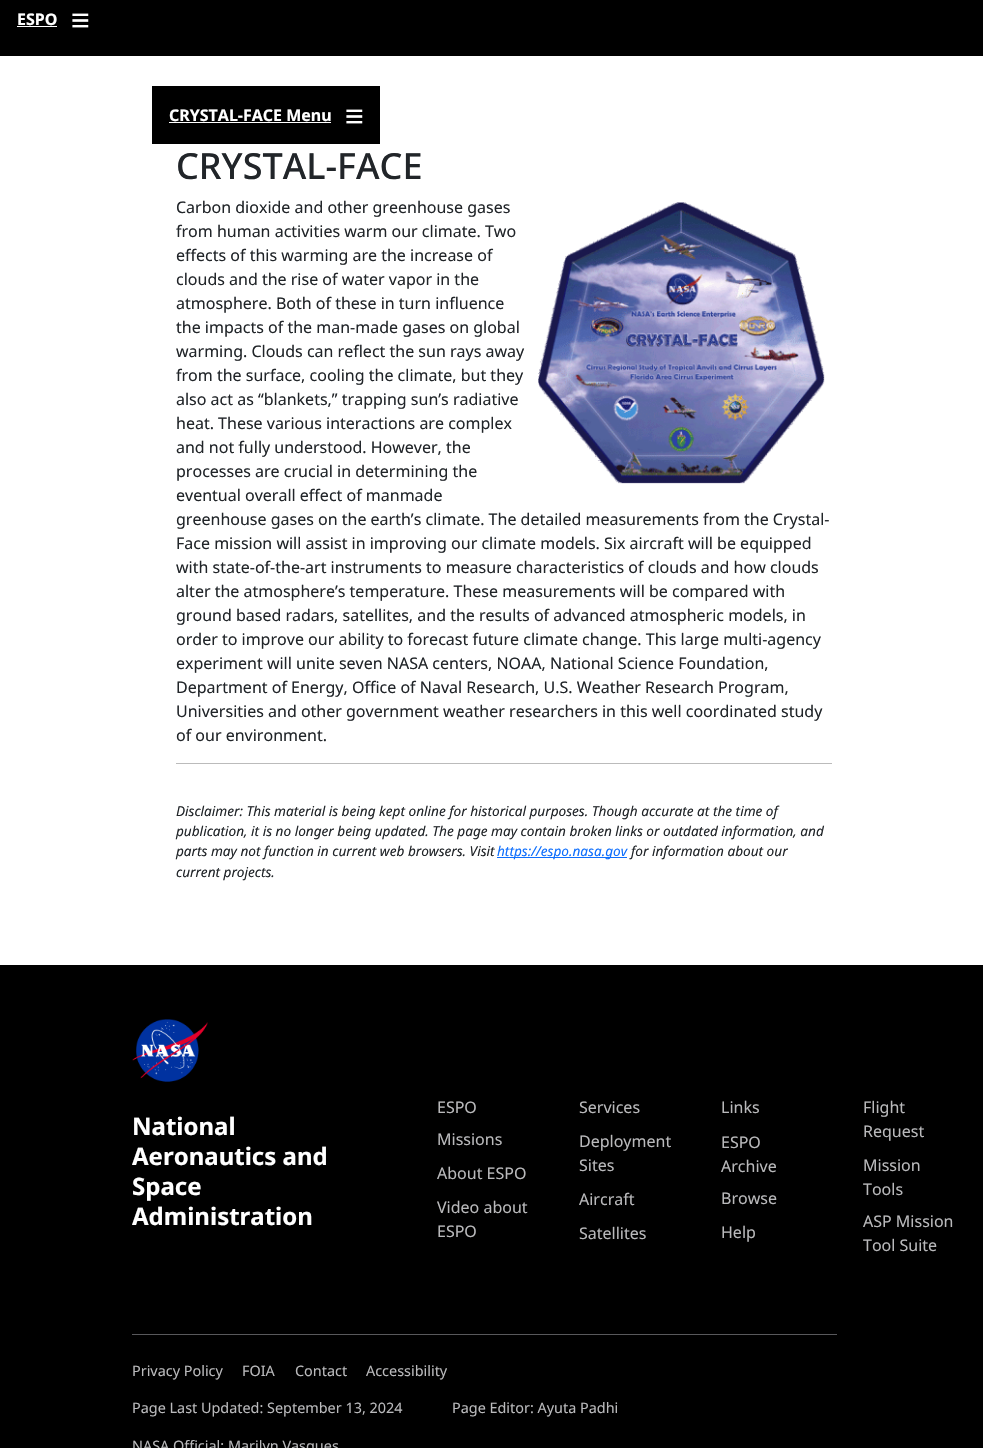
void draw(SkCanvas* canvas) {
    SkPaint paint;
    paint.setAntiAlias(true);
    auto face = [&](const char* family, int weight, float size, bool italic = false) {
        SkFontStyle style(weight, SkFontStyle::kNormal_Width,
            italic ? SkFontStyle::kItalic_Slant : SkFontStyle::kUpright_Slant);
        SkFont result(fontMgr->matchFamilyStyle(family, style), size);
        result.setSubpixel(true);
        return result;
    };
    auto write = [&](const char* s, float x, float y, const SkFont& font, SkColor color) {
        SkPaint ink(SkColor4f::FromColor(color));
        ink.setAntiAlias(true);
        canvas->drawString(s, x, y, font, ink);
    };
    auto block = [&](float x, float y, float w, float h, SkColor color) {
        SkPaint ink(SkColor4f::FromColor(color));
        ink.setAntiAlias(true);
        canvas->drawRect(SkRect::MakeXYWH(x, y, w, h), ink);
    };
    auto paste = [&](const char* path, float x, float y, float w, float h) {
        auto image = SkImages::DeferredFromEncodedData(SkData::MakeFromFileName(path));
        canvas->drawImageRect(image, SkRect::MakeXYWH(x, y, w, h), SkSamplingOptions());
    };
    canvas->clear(SK_ColorWHITE);
    block(0, 0, 983, 56, SK_ColorBLACK);
    auto kFont1 = face("Noto Sans", 700, 16);
    write("ESPO", 17, 25, kFont1, SK_ColorWHITE);
    block(17, 26, 40, 1, SK_ColorWHITE);
    auto kFont2 = face("Liberation Sans", 700, 32);
    write("≡", 71, 31, kFont2, SK_ColorWHITE);
    block(152, 86, 228, 58, SK_ColorBLACK);
    write("CRYSTAL-FACE Menu", 169, 121, kFont1, SK_ColorWHITE);
    block(169, 122, 162, 1, SK_ColorWHITE);
    write("≡", 345, 127, kFont2, SK_ColorWHITE);
    auto kFont3 = face("Noto Sans", 500, 36);
    write("CRYSTAL-FACE", 176, 179, kFont3, SkColorSetRGB(33, 37, 41));
    auto kFont4 = face("Noto Sans", 400, 16);
    write("Carbon dioxide and other greenhouse gases", 176, 213, kFont4, SkColorSetRGB(33, 37, 41));
    write("from human activities warm our climate. Two", 176, 237, kFont4, SkColorSetRGB(33, 37, 41));
    write("effects of this warming are the increase of", 176, 261, kFont4, SkColorSetRGB(33, 37, 41));
    write("clouds and the rise of water vapor in the", 176, 285, kFont4, SkColorSetRGB(33, 37, 41));
    write("atmosphere. Both of these in turn influence", 176, 309, kFont4, SkColorSetRGB(33, 37, 41));
    write("the impacts of the man-made gases on global", 176, 333, kFont4, SkColorSetRGB(33, 37, 41));
    write("warming. Clouds can reflect the sun rays away", 176, 357, kFont4, SkColorSetRGB(33, 37, 41));
    write("from the surface, cooling the climate, but they", 176, 381, kFont4, SkColorSetRGB(33, 37, 41));
    write("also act as “blankets,” trapping sun’s radiative", 176, 405, kFont4, SkColorSetRGB(33, 37, 41));
    write("heat. These various interactions are complex", 176, 429, kFont4, SkColorSetRGB(33, 37, 41));
    write("and not fully understood. However, the", 176, 453, kFont4, SkColorSetRGB(33, 37, 41));
    write("processes are crucial in determining the", 176, 477, kFont4, SkColorSetRGB(33, 37, 41));
    write("eventual overall effect of manmade", 176, 501, kFont4, SkColorSetRGB(33, 37, 41));
    write("greenhouse gases on the earth’s climate. The detailed measurements from the Crystal-", 176, 525, kFont4, SkColorSetRGB(33, 37, 41));
    write("Face mission will assist in improving our climate models. Six aircraft will be equipped", 176, 549, kFont4, SkColorSetRGB(33, 37, 41));
    write("with state-of-the-art instruments to measure characteristics of clouds and how clouds", 176, 573, kFont4, SkColorSetRGB(33, 37, 41));
    write("alter the atmosphere’s temperature. These measurements will be compared with", 176, 597, kFont4, SkColorSetRGB(33, 37, 41));
    write("ground based radars, satellites, and the results of advanced atmospheric models, in", 176, 621, kFont4, SkColorSetRGB(33, 37, 41));
    write("order to improve our ability to forecast future climate change. This large multi-agency", 176, 645, kFont4, SkColorSetRGB(33, 37, 41));
    write("experiment will unite seven NASA centers, NOAA, National Science Foundation,", 176, 669, kFont4, SkColorSetRGB(33, 37, 41));
    write("Department of Energy, Office of Naval Research, U.S. Weather Research Program,", 176, 693, kFont4, SkColorSetRGB(33, 37, 41));
    write("Universities and other government weather researchers in this well coordinated study", 176, 717, kFont4, SkColorSetRGB(33, 37, 41));
    write("of our environment.", 176, 741, kFont4, SkColorSetRGB(33, 37, 41));
    paste("pic1.png", 538, 202, 287, 282);
    block(176, 763, 656, 1, SkColorSetRGB(187, 187, 187));
    auto kFont5 = face("Noto Sans", 400, 13.6f, true);
    write("Disclaimer: This material is being kept online for historical purposes. Though accurate at the time of", 176, 816, kFont5, SkColorSetRGB(33, 37, 41));
    write("publication, it is no longer being updated. The page may contain broken links or outdated information, and", 176, 836, kFont5, SkColorSetRGB(33, 37, 41));
    write("parts may not function in current web browsers. Visit", 176, 856, kFont5, SkColorSetRGB(33, 37, 41));
    block(497, 857, 130, 1, SkColorSetRGB(13, 110, 253));
    write("https://espo.nasa.gov", 497, 856, kFont5, SkColorSetRGB(13, 110, 253));
    write("for information about our", 631, 856, kFont5, SkColorSetRGB(33, 37, 41));
    write("current projects.", 176, 877, kFont5, SkColorSetRGB(33, 37, 41));
    block(0, 965, 983, 483, SK_ColorBLACK);
    paste("pic2.png", 132, 1019, 76, 63);
    auto kFont6 = face("Noto Sans", 700, 24);
    write("National", 132, 1135, kFont6, SK_ColorWHITE);
    write("Aeronautics and", 132, 1165, kFont6, SK_ColorWHITE);
    write("Space", 132, 1195, kFont6, SK_ColorWHITE);
    write("Administration", 132, 1225, kFont6, SK_ColorWHITE);
    write("Services", 579, 1113, kFont4, SkColorSetRGB(185, 185, 187));
    write("Links", 721, 1113, kFont4, SkColorSetRGB(185, 185, 187));
    write("Missions", 437, 1145, kFont4, SkColorSetRGB(185, 185, 187));
    write("Deployment", 579, 1147, kFont4, SkColorSetRGB(185, 185, 187));
    write("Sites", 579, 1171, kFont4, SkColorSetRGB(185, 185, 187));
    write("About ESPO", 437, 1179, kFont4, SkColorSetRGB(185, 185, 187));
    write("Video about", 437, 1213, kFont4, SkColorSetRGB(185, 185, 187));
    write("ESPO", 437, 1237, kFont4, SkColorSetRGB(185, 185, 187));
    write("Aircraft", 579, 1205, kFont4, SkColorSetRGB(185, 185, 187));
    write("Satellites", 579, 1239, kFont4, SkColorSetRGB(185, 185, 187));
    write("ESPO", 437, 1113, kFont4, SkColorSetRGB(185, 185, 187));
    write("Flight", 863, 1113, kFont4, SkColorSetRGB(185, 185, 187));
    write("Request", 863, 1137, kFont4, SkColorSetRGB(185, 185, 187));
    write("ESPO", 721, 1148, kFont4, SkColorSetRGB(185, 185, 187));
    write("Archive", 721, 1172, kFont4, SkColorSetRGB(185, 185, 187));
    write("Browse", 721, 1204, kFont4, SkColorSetRGB(185, 185, 187));
    write("Help", 721, 1238, kFont4, SkColorSetRGB(185, 185, 187));
    write("Mission", 863, 1171, kFont4, SkColorSetRGB(185, 185, 187));
    write("Tools", 863, 1195, kFont4, SkColorSetRGB(185, 185, 187));
    write("ASP Mission", 863, 1227, kFont4, SkColorSetRGB(185, 185, 187));
    write("Tool Suite", 863, 1251, kFont4, SkColorSetRGB(185, 185, 187));
    block(132, 1334, 705, 1, SkColorSetRGB(88, 88, 91));
    auto kFont7 = face("Noto Sans", 400, 14.4f);
    write("Privacy Policy", 132, 1376, kFont7, SkColorSetRGB(185, 185, 187));
    write("FOIA", 242, 1376, kFont7, SkColorSetRGB(185, 185, 187));
    write("Contact", 295, 1376, kFont7, SkColorSetRGB(185, 185, 187));
    write("Accessibility", 366, 1376, kFont7, SkColorSetRGB(185, 185, 187));
    write("Page Last Updated: September 13, 2024", 132, 1413, kFont7, SkColorSetRGB(185, 185, 187));
    write("Page Editor: Ayuta Padhi", 452, 1413, kFont7, SkColorSetRGB(185, 185, 187));
    write("NASA Official: Marilyn Vasques", 132, 1451, kFont7, SkColorSetRGB(185, 185, 187));
}
